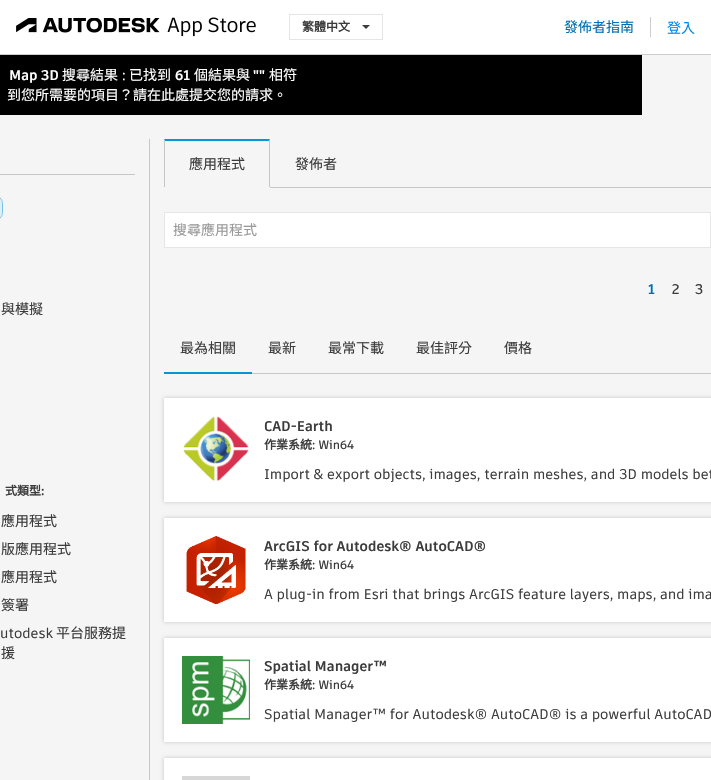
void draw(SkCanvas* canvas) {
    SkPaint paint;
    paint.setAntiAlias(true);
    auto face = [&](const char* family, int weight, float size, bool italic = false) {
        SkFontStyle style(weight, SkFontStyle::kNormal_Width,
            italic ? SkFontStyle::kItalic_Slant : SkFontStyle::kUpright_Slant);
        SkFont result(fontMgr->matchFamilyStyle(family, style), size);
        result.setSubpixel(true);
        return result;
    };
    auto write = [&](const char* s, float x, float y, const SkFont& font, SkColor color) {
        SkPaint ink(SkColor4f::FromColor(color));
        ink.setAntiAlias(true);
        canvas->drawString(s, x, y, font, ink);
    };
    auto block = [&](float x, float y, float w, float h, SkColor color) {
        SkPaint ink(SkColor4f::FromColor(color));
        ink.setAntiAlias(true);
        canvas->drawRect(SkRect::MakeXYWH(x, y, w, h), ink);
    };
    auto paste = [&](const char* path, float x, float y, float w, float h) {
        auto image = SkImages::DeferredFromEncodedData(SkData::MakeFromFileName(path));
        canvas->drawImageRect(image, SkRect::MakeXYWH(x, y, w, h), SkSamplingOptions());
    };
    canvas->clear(SkColorSetRGB(245, 245, 245));
    block(0, 0, 711, 54, SK_ColorWHITE);
    block(0, 54, 711, 1, SkColorSetRGB(206, 206, 206));
    paste("pic1.png", 16, 17, 240, 20);
    paint.setStyle(SkPaint::kStroke_Style);
    paint.setStrokeWidth(1);
    paint.setColor(SkColorSetRGB(230, 230, 230));
    canvas->drawRect(SkRect::MakeXYWH(289.5f, 14.5f, 93, 25), paint);
    auto kFont1 = face("Noto Sans CJK TC", 700, 12);
    write("繁體中文", 302, 31, kFont1, SkColorSetRGB(60, 60, 60));
    paint.setStyle(SkPaint::kFill_Style);
    paint.setColor(SkColorSetRGB(60, 60, 60));
    canvas->drawPath(SkPathBuilder().moveTo(362, 25).lineTo(370, 25).lineTo(366, 29).close().detach(), paint);
    block(650, 17, 1, 20, SkColorSetRGB(206, 206, 206));
    auto kFont2 = face("Noto Sans CJK TC", 400, 14);
    write("發佈者指南", 564, 32, kFont2, SkColorSetRGB(0, 110, 175));
    write("登入", 667, 33, kFont2, SkColorSetRGB(0, 136, 238));
    block(0, 55, 642, 60, SK_ColorBLACK);
    auto kFont3 = face("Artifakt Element", 700, 14);
    write("Map 3D", 9, 80, kFont3, SK_ColorWHITE);
    write("搜尋結果", 62, 80, kFont2, SK_ColorWHITE);
    auto kFont4 = face("Artifakt Element", 500, 14);
    write(":", 122, 80, kFont4, SK_ColorWHITE);
    write("已找到", 129, 80, kFont2, SK_ColorWHITE);
    write("61", 175, 80, kFont3, SK_ColorWHITE);
    write("個結果與", 194, 80, kFont2, SK_ColorWHITE);
    write("\"\"", 253, 80, kFont3, SK_ColorWHITE);
    write("相符", 269, 80, kFont2, SK_ColorWHITE);
    write("到您所需要的項目？請在此處提交您的請求。", 7, 100, kFont2, SK_ColorWHITE);
    block(0, 174, 135, 1, SkColorSetRGB(199, 199, 199));
    paint.setColor(SkColorSetRGB(221, 238, 246));
    canvas->drawPath(SkPathBuilder().moveTo(0, 195).lineTo(-10, 195).cubicTo(-3, 195, 3, 201, 3, 208).cubicTo(3, 215, -3, 221, -10, 221).lineTo(0, 221).close().detach(), paint);
    paint.setStyle(SkPaint::kStroke_Style);
    paint.setColor(SkColorSetARGB(128, 6, 150, 215));
    canvas->drawRoundRect(SkRect::MakeXYWH(-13.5f, 195.5f, 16, 25), 12.5f, 12.5f, paint);
    write("與模擬", 1, 314, kFont2, SkColorSetRGB(60, 60, 60));
    write("式類型", 5, 495, kFont1, SkColorSetRGB(60, 60, 60));
    auto kFont5 = face("Artifakt Element", 700, 12);
    write(":", 41, 495, kFont5, SkColorSetRGB(60, 60, 60));
    write("應用程式", 1, 526, kFont2, SkColorSetRGB(60, 60, 60));
    write("版應用程式", 1, 554, kFont2, SkColorSetRGB(60, 60, 60));
    write("應用程式", 1, 582, kFont2, SkColorSetRGB(60, 60, 60));
    write("簽署", 1, 610, kFont2, SkColorSetRGB(60, 60, 60));
    write("utodesk", 0, 638, kFont4, SkColorSetRGB(60, 60, 60));
    write("平台服務提", 56, 638, kFont2, SkColorSetRGB(60, 60, 60));
    write("援", 1, 658, kFont2, SkColorSetRGB(60, 60, 60));
    block(149, 139, 1, 641, SkColorSetRGB(199, 199, 199));
    block(270, 187, 441, 1, SkColorSetRGB(199, 199, 199));
    paint.setStyle(SkPaint::kFill_Style);
    paint.setColor(SkColorSetRGB(6, 150, 215));
    canvas->drawPath(SkPathBuilder().moveTo(164, 139).lineTo(270, 139).lineTo(269, 141).lineTo(165, 141).close().detach(), paint);
    paint.setColor(SkColorSetRGB(198, 198, 198));
    canvas->drawPath(SkPathBuilder().moveTo(270, 139).lineTo(270, 187).lineTo(269, 187).lineTo(269, 141).close().detach(), paint);
    canvas->drawPath(SkPathBuilder().moveTo(164, 187).lineTo(164, 139).lineTo(165, 141).lineTo(165, 187).close().detach(), paint);
    write("應用程式", 189, 169, kFont2, SkColorSetRGB(60, 60, 60));
    write("發佈者", 295, 169, kFont2, SkColorSetRGB(60, 60, 60));
    paint.setColor(SK_ColorWHITE);
    canvas->drawRect(SkRect::MakeXYWH(164.5f, 212.5f, 546, 35), paint);
    paint.setStyle(SkPaint::kStroke_Style);
    paint.setColor(SkColorSetRGB(230, 230, 230));
    canvas->drawRect(SkRect::MakeXYWH(164.5f, 212.5f, 546, 35), paint);
    write("搜尋應用程式", 173, 235, kFont2, SkColorSetRGB(153, 153, 153));
    write("1", 648, 294, kFont3, SkColorSetRGB(0, 110, 175));
    auto kFont6 = face("Artifakt Element", 600, 14);
    write("2", 672, 294, kFont6, SkColorSetRGB(60, 60, 60));
    write("3", 695, 294, kFont6, SkColorSetRGB(60, 60, 60));
    block(252, 373, 459, 1, SkColorSetRGB(199, 199, 199));
    block(164, 372, 88, 2, SkColorSetRGB(6, 150, 215));
    write("最為相關", 180, 353, kFont2, SkColorSetRGB(60, 60, 60));
    write("最新", 268, 353, kFont2, SkColorSetRGB(60, 60, 60));
    write("最常下載", 328, 353, kFont2, SkColorSetRGB(60, 60, 60));
    write("最佳評分", 416, 353, kFont2, SkColorSetRGB(60, 60, 60));
    write("價格", 504, 353, kFont2, SkColorSetRGB(60, 60, 60));
    paint.setStyle(SkPaint::kFill_Style);
    paint.setColor(SkColorSetARGB(51, 0, 0, 0));
    paint.setMaskFilter(SkMaskFilter::MakeBlur(kNormal_SkBlurStyle, 2));
    canvas->drawRect(SkRect::MakeXYWH(164, 398, 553, 104), paint);
    paint.setMaskFilter(nullptr);
    block(164, 398, 547, 104, SK_ColorWHITE);
    paste("pic2.png", 183, 416, 66, 65);
    write("CAD-Earth", 264, 431, kFont3, SkColorSetRGB(60, 60, 60));
    write("作業系統", 264, 449, kFont1, SkColorSetRGB(60, 60, 60));
    auto kFont7 = face("Artifakt Element", 600, 12);
    write(": Win64", 312, 449, kFont7, SkColorSetRGB(60, 60, 60));
    write("Import & export objects, images, terrain meshes, and 3D models bet", 264, 479, kFont4, SkColorSetRGB(60, 60, 60));
    paint.setMaskFilter(SkMaskFilter::MakeBlur(kNormal_SkBlurStyle, 2));
    canvas->drawRect(SkRect::MakeXYWH(164, 518, 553, 104), paint);
    paint.setMaskFilter(nullptr);
    block(164, 518, 547, 104, SK_ColorWHITE);
    paste("pic3.png", 186, 536, 60, 68);
    write("ArcGIS for Autodesk® AutoCAD®", 264, 551, kFont3, SkColorSetRGB(60, 60, 60));
    write("作業系統", 264, 569, kFont1, SkColorSetRGB(60, 60, 60));
    write(": Win64", 312, 569, kFont7, SkColorSetRGB(60, 60, 60));
    write("A plug-in from Esri that brings ArcGIS feature layers, maps, and ima", 264, 599, kFont4, SkColorSetRGB(60, 60, 60));
    paint.setMaskFilter(SkMaskFilter::MakeBlur(kNormal_SkBlurStyle, 2));
    canvas->drawRect(SkRect::MakeXYWH(164, 638, 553, 104), paint);
    paint.setMaskFilter(nullptr);
    block(164, 638, 547, 104, SK_ColorWHITE);
    paste("pic4.png", 182, 656, 68, 68);
    write("Spatial Manager™", 264, 671, kFont3, SkColorSetRGB(60, 60, 60));
    write("作業系統", 264, 689, kFont1, SkColorSetRGB(60, 60, 60));
    write(": Win64", 312, 689, kFont7, SkColorSetRGB(60, 60, 60));
    write("Spatial Manager™ for Autodesk® AutoCAD® is a powerful AutoCAD", 264, 719, kFont4, SkColorSetRGB(60, 60, 60));
    paint.setMaskFilter(SkMaskFilter::MakeBlur(kNormal_SkBlurStyle, 2));
    canvas->drawRect(SkRect::MakeXYWH(164, 758, 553, 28), paint);
    paint.setMaskFilter(nullptr);
    block(164, 758, 547, 22, SK_ColorWHITE);
    block(182, 776, 68, 4, SkColorSetRGB(215, 215, 215));
}
